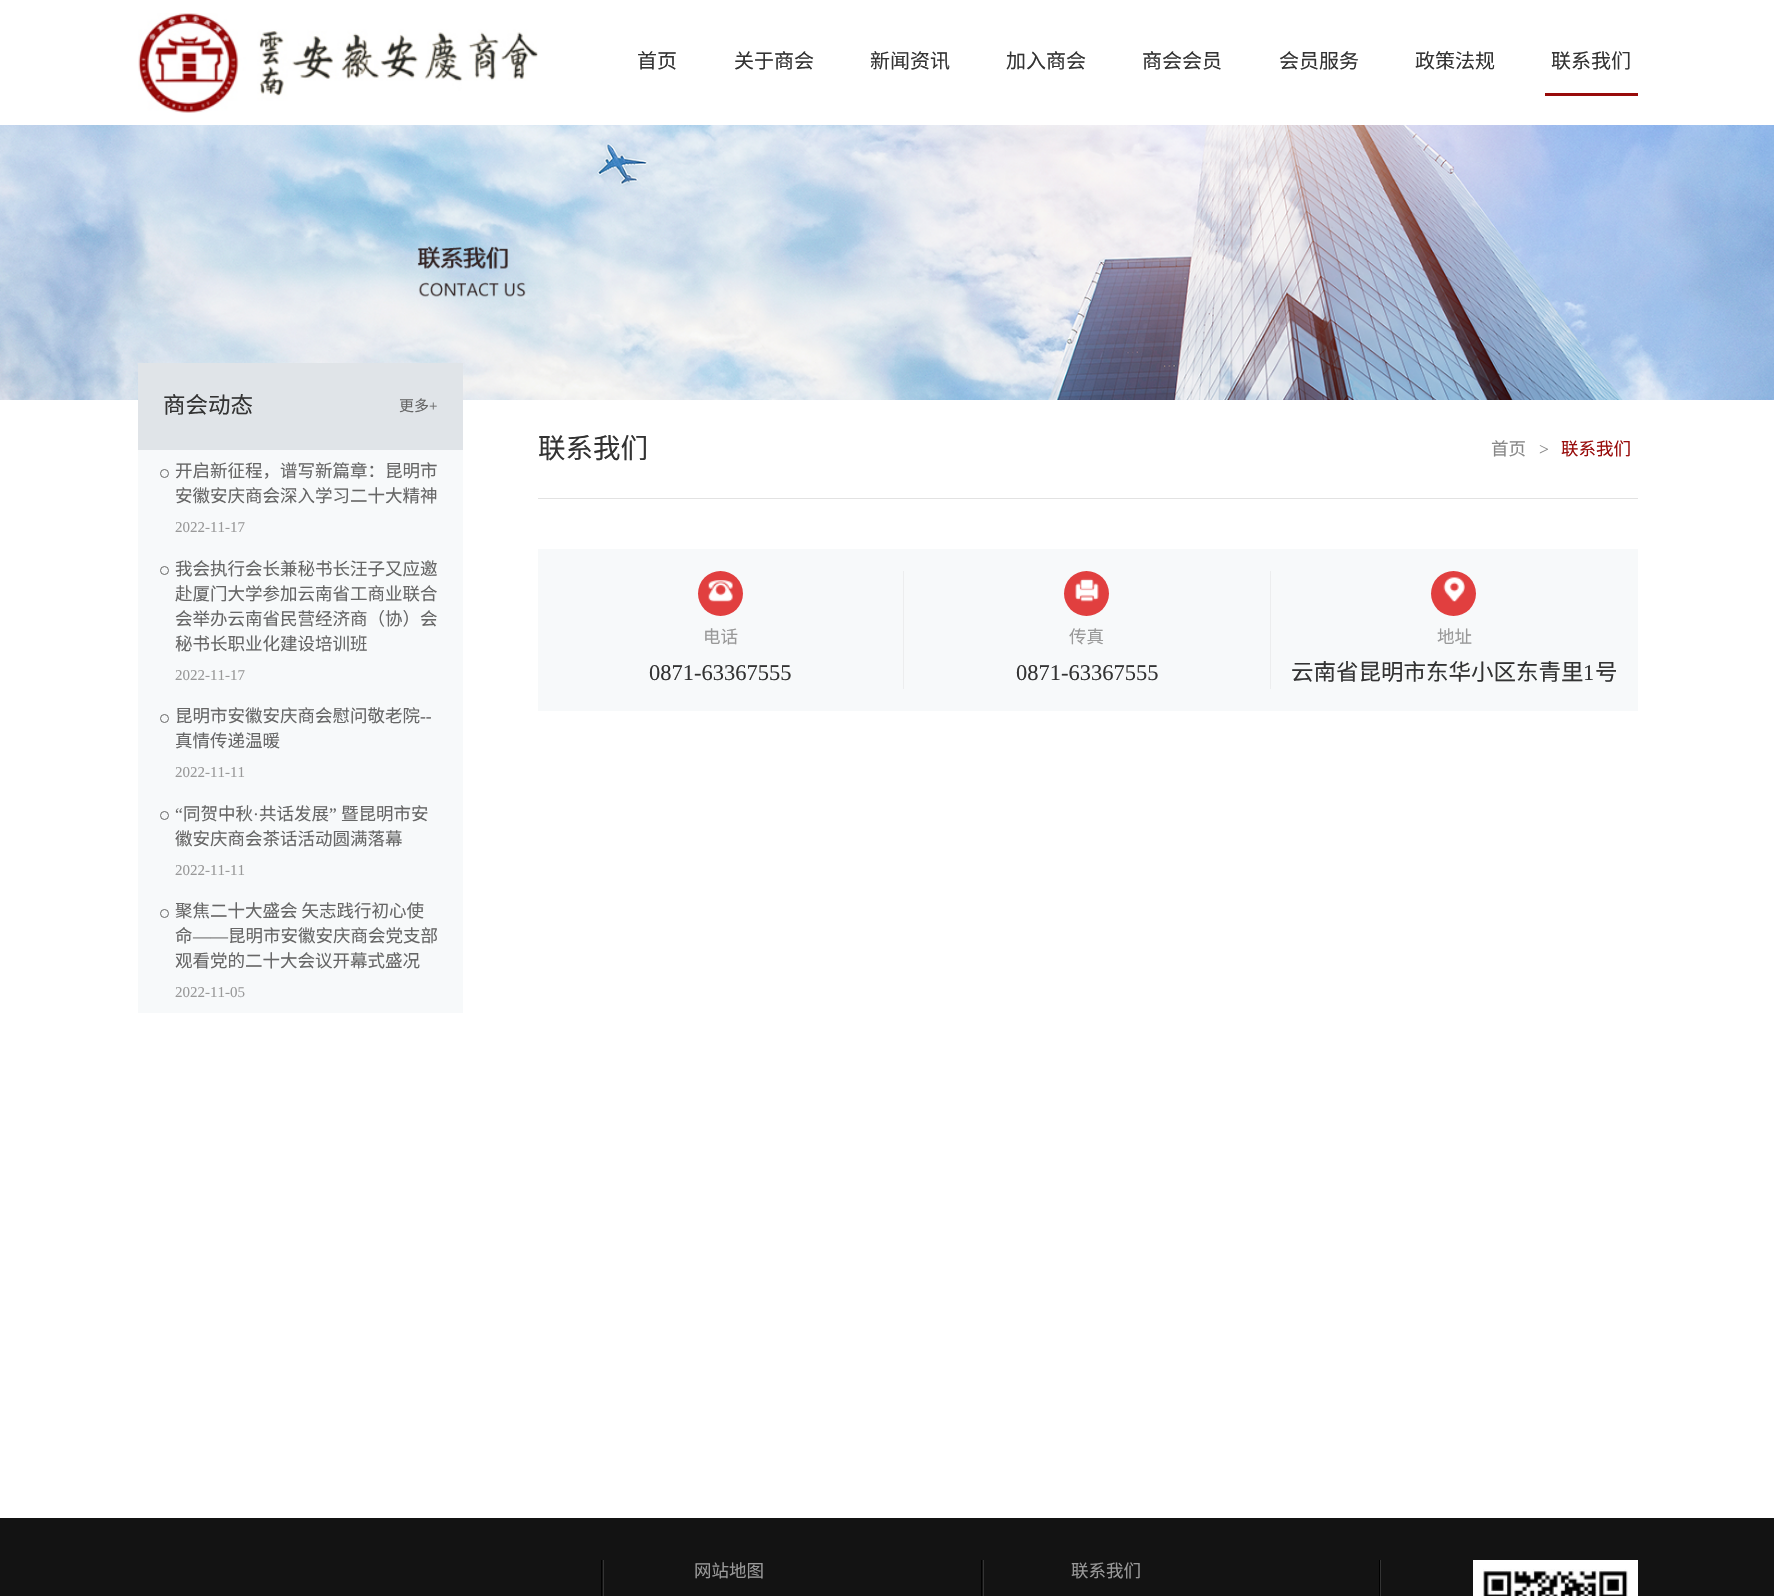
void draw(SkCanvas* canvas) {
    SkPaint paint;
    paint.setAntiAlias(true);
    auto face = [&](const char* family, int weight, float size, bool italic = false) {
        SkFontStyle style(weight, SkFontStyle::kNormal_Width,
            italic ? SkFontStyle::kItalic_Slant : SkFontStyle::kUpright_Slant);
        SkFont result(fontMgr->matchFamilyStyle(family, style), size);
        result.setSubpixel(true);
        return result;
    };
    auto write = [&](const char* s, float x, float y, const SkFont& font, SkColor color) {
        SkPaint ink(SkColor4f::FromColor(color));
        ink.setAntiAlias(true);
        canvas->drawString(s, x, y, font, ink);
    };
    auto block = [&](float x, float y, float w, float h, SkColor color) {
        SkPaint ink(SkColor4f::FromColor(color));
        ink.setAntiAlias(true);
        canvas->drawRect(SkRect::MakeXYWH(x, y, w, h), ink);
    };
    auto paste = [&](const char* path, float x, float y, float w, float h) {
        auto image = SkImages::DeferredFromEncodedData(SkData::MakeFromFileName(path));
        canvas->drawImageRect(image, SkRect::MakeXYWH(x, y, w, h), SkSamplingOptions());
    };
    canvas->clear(SK_ColorWHITE);
    paste("pic1.png", 138, 13, 400, 100);
    auto kFont1 = face("Noto Sans CJK SC", 400, 20);
    write("首页", 637, 68, kFont1, SkColorSetRGB(51, 51, 51));
    write("关于商会", 734, 68, kFont1, SkColorSetRGB(51, 51, 51));
    write("新闻资讯", 870, 68, kFont1, SkColorSetRGB(51, 51, 51));
    write("加入商会", 1006, 68, kFont1, SkColorSetRGB(51, 51, 51));
    write("商会会员", 1142, 68, kFont1, SkColorSetRGB(51, 51, 51));
    write("会员服务", 1279, 68, kFont1, SkColorSetRGB(51, 51, 51));
    write("政策法规", 1415, 68, kFont1, SkColorSetRGB(51, 51, 51));
    block(1545, 93, 93, 3, SkColorSetRGB(152, 11, 10));
    write("联系我们", 1551, 68, kFont1, SkColorSetRGB(51, 51, 51));
    paste("pic2.png", 0, 125, 1774, 275);
    block(138, 363, 325, 87, SkColorSetRGB(224, 228, 232));
    auto kFont2 = face("Noto Sans CJK SC", 400, 22.5f);
    write("商会动态", 163, 413, kFont2, SkColorSetRGB(51, 51, 51));
    auto kFont3 = face("Noto Sans CJK SC", 400, 15);
    write("更多", 399, 411, kFont3, SkColorSetRGB(102, 102, 102));
    auto kFont4 = face("Liberation Serif", 400, 15);
    write("+", 429, 411, kFont4, SkColorSetRGB(102, 102, 102));
    block(138, 450, 325, 563, SkColorSetRGB(247, 249, 250));
    paint.setStyle(SkPaint::kStroke_Style);
    paint.setStrokeWidth(1);
    paint.setColor(SkColorSetRGB(102, 102, 102));
    canvas->drawCircle(164.5f, 473.5f, 4, paint);
    auto kFont5 = face("Noto Sans CJK SC", 400, 17.5f);
    write("开启新征程，谱写新篇章：昆明市", 175, 477, kFont5, SkColorSetRGB(102, 102, 102));
    write("安徽安庆商会深入学习二十大精神", 175, 502, kFont5, SkColorSetRGB(102, 102, 102));
    write("2022-11-17", 175, 532, kFont4, SkColorSetRGB(153, 153, 153));
    canvas->drawCircle(164.5f, 570.5f, 4, paint);
    write("我会执行会长兼秘书长汪子又应邀", 175, 575, kFont5, SkColorSetRGB(102, 102, 102));
    write("赴厦门大学参加云南省工商业联合", 175, 600, kFont5, SkColorSetRGB(102, 102, 102));
    write("会举办云南省民营经济商（协）会", 175, 625, kFont5, SkColorSetRGB(102, 102, 102));
    write("秘书长职业化建设培训班", 175, 650, kFont5, SkColorSetRGB(102, 102, 102));
    write("2022-11-17", 175, 680, kFont4, SkColorSetRGB(153, 153, 153));
    canvas->drawCircle(164.5f, 718.5f, 4, paint);
    write("昆明市安徽安庆商会慰问敬老院", 175, 722, kFont5, SkColorSetRGB(102, 102, 102));
    auto kFont6 = face("Liberation Serif", 400, 17.5f);
    write("--", 420, 722, kFont6, SkColorSetRGB(102, 102, 102));
    write("真情传递温暖", 175, 747, kFont5, SkColorSetRGB(102, 102, 102));
    write("2022-11-11", 175, 777, kFont4, SkColorSetRGB(153, 153, 153));
    canvas->drawCircle(164.5f, 815.5f, 4, paint);
    write("“", 175, 820, kFont6, SkColorSetRGB(102, 102, 102));
    write("同贺中秋", 183, 820, kFont5, SkColorSetRGB(102, 102, 102));
    write("共话发展", 259, 820, kFont5, SkColorSetRGB(102, 102, 102));
    write("”", 329, 820, kFont6, SkColorSetRGB(102, 102, 102));
    write("暨昆明市安", 341, 820, kFont5, SkColorSetRGB(102, 102, 102));
    write("·", 253, 820, kFont6, SkColorSetRGB(102, 102, 102));
    write("徽安庆商会茶话活动圆满落幕", 175, 845, kFont5, SkColorSetRGB(102, 102, 102));
    write("2022-11-11", 175, 875, kFont4, SkColorSetRGB(153, 153, 153));
    canvas->drawCircle(164.5f, 913.5f, 4, paint);
    write("聚焦二十大盛会 矢志践行初心使", 175, 917, kFont5, SkColorSetRGB(102, 102, 102));
    write("命", 175, 942, kFont5, SkColorSetRGB(102, 102, 102));
    write("——", 193, 942, kFont6, SkColorSetRGB(102, 102, 102));
    write("昆明市安徽安庆商会党支部", 228, 942, kFont5, SkColorSetRGB(102, 102, 102));
    write("观看党的二十大会议开幕式盛况", 175, 967, kFont5, SkColorSetRGB(102, 102, 102));
    write("2022-11-05", 175, 997, kFont4, SkColorSetRGB(153, 153, 153));
    block(538, 498, 1100, 1, SkColorSetRGB(226, 226, 226));
    auto kFont7 = face("Noto Sans CJK SC", 400, 27.5f);
    write("联系我们", 538, 458, kFont7, SkColorSetRGB(51, 51, 51));
    write("首页", 1491, 455, kFont5, SkColorSetRGB(136, 136, 136));
    write(">", 1539, 455, kFont6, SkColorSetRGB(136, 136, 136));
    write("联系我们", 1561, 455, kFont5, SkColorSetRGB(152, 12, 11));
    block(538, 549, 1100, 162, SkColorSetRGB(247, 249, 250));
    block(903, 571, 1, 118, SkColorSetRGB(236, 237, 238));
    paint.setStyle(SkPaint::kFill_Style);
    paint.setColor(SkColorSetRGB(225, 63, 63));
    canvas->drawCircle(720.5f, 593.5f, 22.5f, paint);
    paste("pic3.png", 708, 580, 25, 22);
    write("电话", 703, 643, kFont5, SkColorSetRGB(153, 153, 153));
    auto kFont8 = face("Liberation Serif", 400, 22.5f);
    write("0871-63367555", 649, 680, kFont8, SkColorSetRGB(51, 51, 51));
    block(1270, 571, 1, 118, SkColorSetRGB(236, 237, 238));
    canvas->drawCircle(1086.5f, 593.5f, 22.5f, paint);
    paste("pic4.png", 1075, 578, 24, 24);
    write("传真", 1069, 643, kFont5, SkColorSetRGB(153, 153, 153));
    write("0871-63367555", 1016, 680, kFont8, SkColorSetRGB(51, 51, 51));
    canvas->drawCircle(1453.5f, 593.5f, 22.5f, paint);
    paste("pic5.png", 1443, 577, 22, 25);
    write("地址", 1437, 643, kFont5, SkColorSetRGB(153, 153, 153));
    write("云南省昆明市东华小区东青里", 1291, 680, kFont2, SkColorSetRGB(51, 51, 51));
    write("1", 1583, 680, kFont8, SkColorSetRGB(51, 51, 51));
    write("号", 1595, 680, kFont2, SkColorSetRGB(51, 51, 51));
    block(0, 1518, 1774, 78, SkColorSetRGB(19, 19, 19));
    block(601, 1560, 1, 36, SK_ColorBLACK);
    block(981, 1560, 1, 36, SK_ColorBLACK);
    block(603, 1560, 1, 36, SkColorSetRGB(52, 52, 52));
    write("网站地图", 694, 1577, kFont5, SkColorSetRGB(153, 153, 153));
    block(1379, 1560, 1, 36, SK_ColorBLACK);
    block(983, 1560, 1, 36, SkColorSetRGB(52, 52, 52));
    write("联系我们", 1071, 1577, kFont5, SkColorSetRGB(153, 153, 153));
    block(1380, 1560, 1, 36, SkColorSetRGB(52, 52, 52));
    block(1473, 1560, 165, 36, SK_ColorWHITE);
    paste("pic6.png", 1483, 1569, 145, 27);
}
